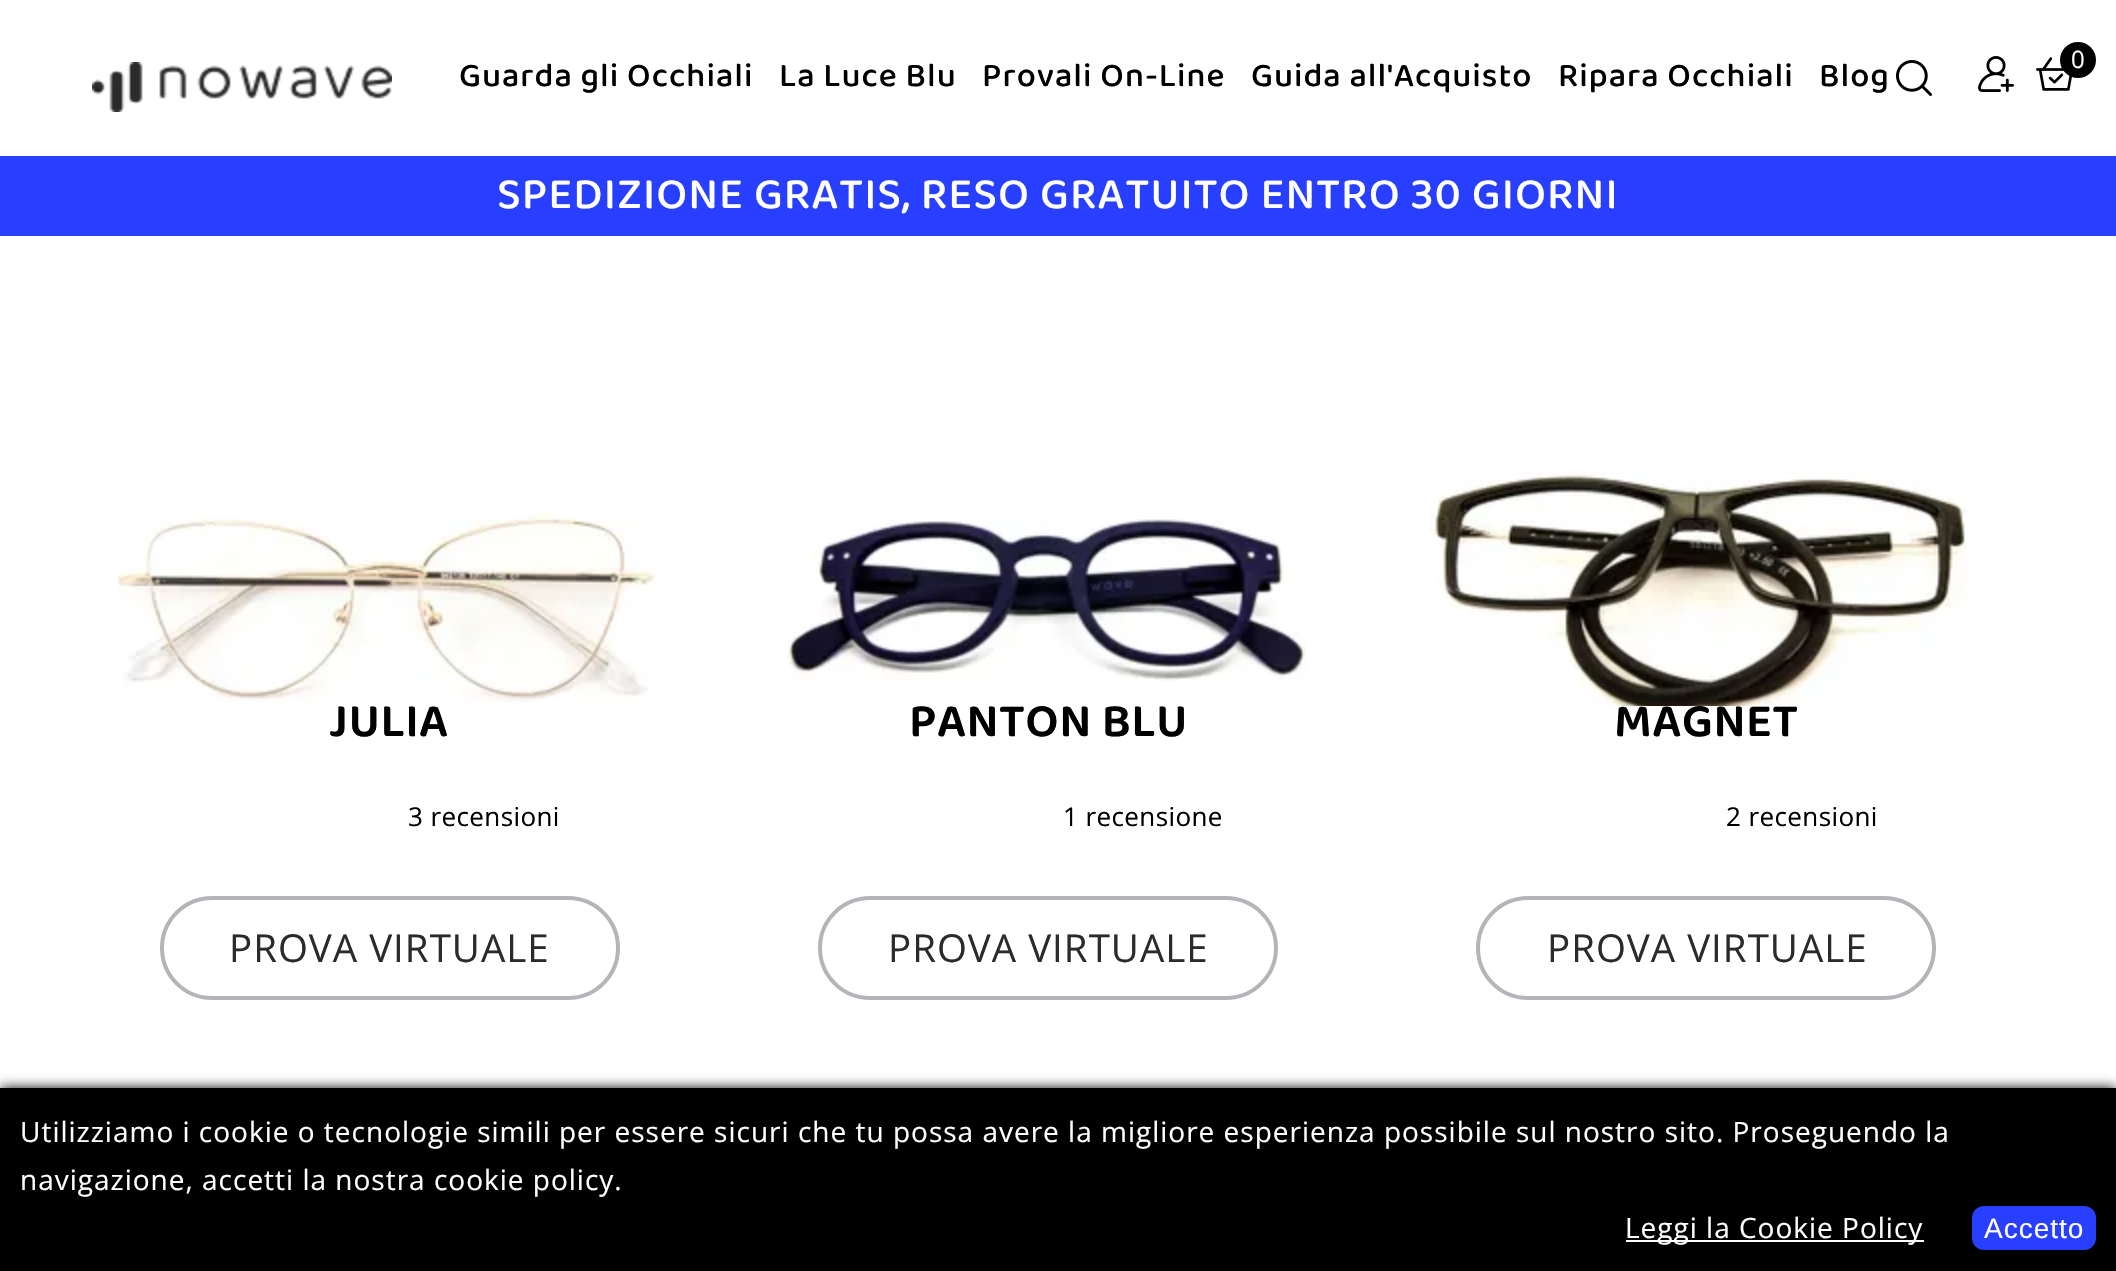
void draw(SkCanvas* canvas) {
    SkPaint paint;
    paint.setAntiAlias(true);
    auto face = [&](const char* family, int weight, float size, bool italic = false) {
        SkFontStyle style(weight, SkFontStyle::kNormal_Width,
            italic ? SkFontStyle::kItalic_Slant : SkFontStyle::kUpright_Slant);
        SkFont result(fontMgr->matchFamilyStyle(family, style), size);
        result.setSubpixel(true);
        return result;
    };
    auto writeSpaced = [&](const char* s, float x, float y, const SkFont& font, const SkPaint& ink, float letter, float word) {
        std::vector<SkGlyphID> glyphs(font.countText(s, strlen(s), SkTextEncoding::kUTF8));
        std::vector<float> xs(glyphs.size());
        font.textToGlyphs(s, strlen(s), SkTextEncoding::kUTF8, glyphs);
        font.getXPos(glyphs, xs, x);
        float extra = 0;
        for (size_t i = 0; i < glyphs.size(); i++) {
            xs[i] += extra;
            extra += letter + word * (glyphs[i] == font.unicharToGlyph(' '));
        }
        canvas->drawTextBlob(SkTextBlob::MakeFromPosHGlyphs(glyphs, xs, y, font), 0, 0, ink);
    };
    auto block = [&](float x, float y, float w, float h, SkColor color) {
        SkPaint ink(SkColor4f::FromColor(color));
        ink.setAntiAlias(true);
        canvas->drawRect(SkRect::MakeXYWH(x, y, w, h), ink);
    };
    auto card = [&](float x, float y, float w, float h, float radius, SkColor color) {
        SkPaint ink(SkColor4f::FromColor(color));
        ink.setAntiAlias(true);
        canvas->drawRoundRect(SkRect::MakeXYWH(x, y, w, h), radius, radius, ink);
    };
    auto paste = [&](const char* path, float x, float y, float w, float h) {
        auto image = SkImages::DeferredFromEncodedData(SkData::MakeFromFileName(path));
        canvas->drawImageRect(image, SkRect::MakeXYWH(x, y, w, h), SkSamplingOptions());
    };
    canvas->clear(SK_ColorWHITE);
    paste("pic1.png", 92, 62, 300, 50);
    auto kFont1 = face("Baloo 2", 500, 34);
    paint.setColor(SK_ColorBLACK);
    writeSpaced("Guarda gli Occhiali", 459, 86, kFont1, paint, 1, 0);
    writeSpaced("La Luce Blu", 779, 86, kFont1, paint, 1, 0);
    writeSpaced("Provali On-Line", 982, 86, kFont1, paint, 1, 0);
    writeSpaced("Guida all'Acquisto", 1251, 86, kFont1, paint, 1, 0);
    writeSpaced("Ripara Occhiali", 1558, 86, kFont1, paint, 1, 0);
    writeSpaced("Blog", 1819, 86, kFont1, paint, 1, 0);
    paste("pic2.png", 1896, 60, 36, 36);
    paste("pic3.png", 1978, 56, 36, 36);
    paste("pic4.png", 2036, 57, 36, 34);
    canvas->drawCircle(2078, 60, 18, paint);
    auto kFont2 = face("Open Sans", 400, 24);
    paint.setColor(SK_ColorWHITE);
    writeSpaced("0", 2071, 68, kFont2, paint, 1, 0);
    block(0, 156, 2116, 80, SkColorSetRGB(40, 63, 255));
    auto kFont3 = face("Baloo 2", 500, 44.8f);
    writeSpaced("SPEDIZIONE GRATIS, RESO GRATUITO ENTRO 30 GIORNI", 497, 208, kFont3, paint, 1, 0);
    paste("pic5.png", 117, 512, 539, 191);
    auto kFont4 = face("Baloo 2", 600, 48);
    paint.setColor(SK_ColorBLACK);
    writeSpaced("JULIA", 329, 736, kFont4, paint, 0.4f, 0);
    auto kFont5 = face("Open Sans", 400, 26);
    writeSpaced("3 recensioni", 408, 826, kFont5, paint, 0.4f, 0);
    paint.setStyle(SkPaint::kStroke_Style);
    paint.setStrokeWidth(4);
    paint.setColor(SkColorSetRGB(180, 180, 185));
    canvas->drawRoundRect(SkRect::MakeXYWH(162, 898, 456, 100), 50, 50, paint);
    auto kFont6 = face("Open Sans", 400, 38.5f);
    paint.setStyle(SkPaint::kFill_Style);
    paint.setColor(SkColorSetRGB(43, 43, 43));
    writeSpaced("PROVA VIRTUALE", 229, 962, kFont6, paint, 1, 0);
    paste("pic6.png", 788, 519, 519, 162);
    paint.setColor(SK_ColorBLACK);
    writeSpaced("PANTON BLU", 909, 736, kFont4, paint, 0.4f, 0);
    writeSpaced("1 recensione", 1063, 826, kFont5, paint, 0.4f, 0);
    paint.setStyle(SkPaint::kStroke_Style);
    paint.setColor(SkColorSetRGB(180, 180, 185));
    canvas->drawRoundRect(SkRect::MakeXYWH(820, 898, 456, 100), 50, 50, paint);
    paint.setStyle(SkPaint::kFill_Style);
    paint.setColor(SkColorSetRGB(43, 43, 43));
    writeSpaced("PROVA VIRTUALE", 888, 962, kFont6, paint, 1, 0);
    paste("pic7.png", 1430, 472, 537, 234);
    paint.setColor(SK_ColorBLACK);
    writeSpaced("MAGNET", 1614, 736, kFont4, paint, 0.4f, 0);
    writeSpaced("2 recensioni", 1726, 826, kFont5, paint, 0.4f, 0);
    paint.setStyle(SkPaint::kStroke_Style);
    paint.setColor(SkColorSetRGB(180, 180, 185));
    canvas->drawRoundRect(SkRect::MakeXYWH(1478, 898, 456, 100), 50, 50, paint);
    paint.setStyle(SkPaint::kFill_Style);
    paint.setColor(SkColorSetRGB(43, 43, 43));
    writeSpaced("PROVA VIRTUALE", 1547, 962, kFont6, paint, 1, 0);
    paint.setColor(SK_ColorBLACK);
    paint.setMaskFilter(SkMaskFilter::MakeBlur(kNormal_SkBlurStyle, 6));
    canvas->drawRect(SkRect::MakeXYWH(0, 1088, 2116, 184), paint);
    paint.setMaskFilter(nullptr);
    block(0, 1088, 2116, 183, SK_ColorBLACK);
    auto kFont7 = face("Open Sans", 400, 28);
    paint.setColor(SK_ColorWHITE);
    writeSpaced("Utilizziamo i cookie o tecnologie simili per essere sicuri che tu possa avere la migliore esperienza possibile sul nostro sito. Proseguendo la", 20, 1142, kFont7, paint, 1, 0);
    writeSpaced("navigazione, accetti la nostra cookie policy.", 20, 1190, kFont7, paint, 1, 0);
    block(1626, 1240, 298, 2, SK_ColorWHITE);
    writeSpaced("Leggi la Cookie Policy", 1625, 1238, kFont7, paint, 1, 0);
    card(1972, 1206, 124, 44, 12, SkColorSetRGB(40, 63, 255));
    auto kFont8 = face("Liberation Sans", 400, 28);
    writeSpaced("Accetto", 1984, 1238, kFont8, paint, 1, 0);
}
